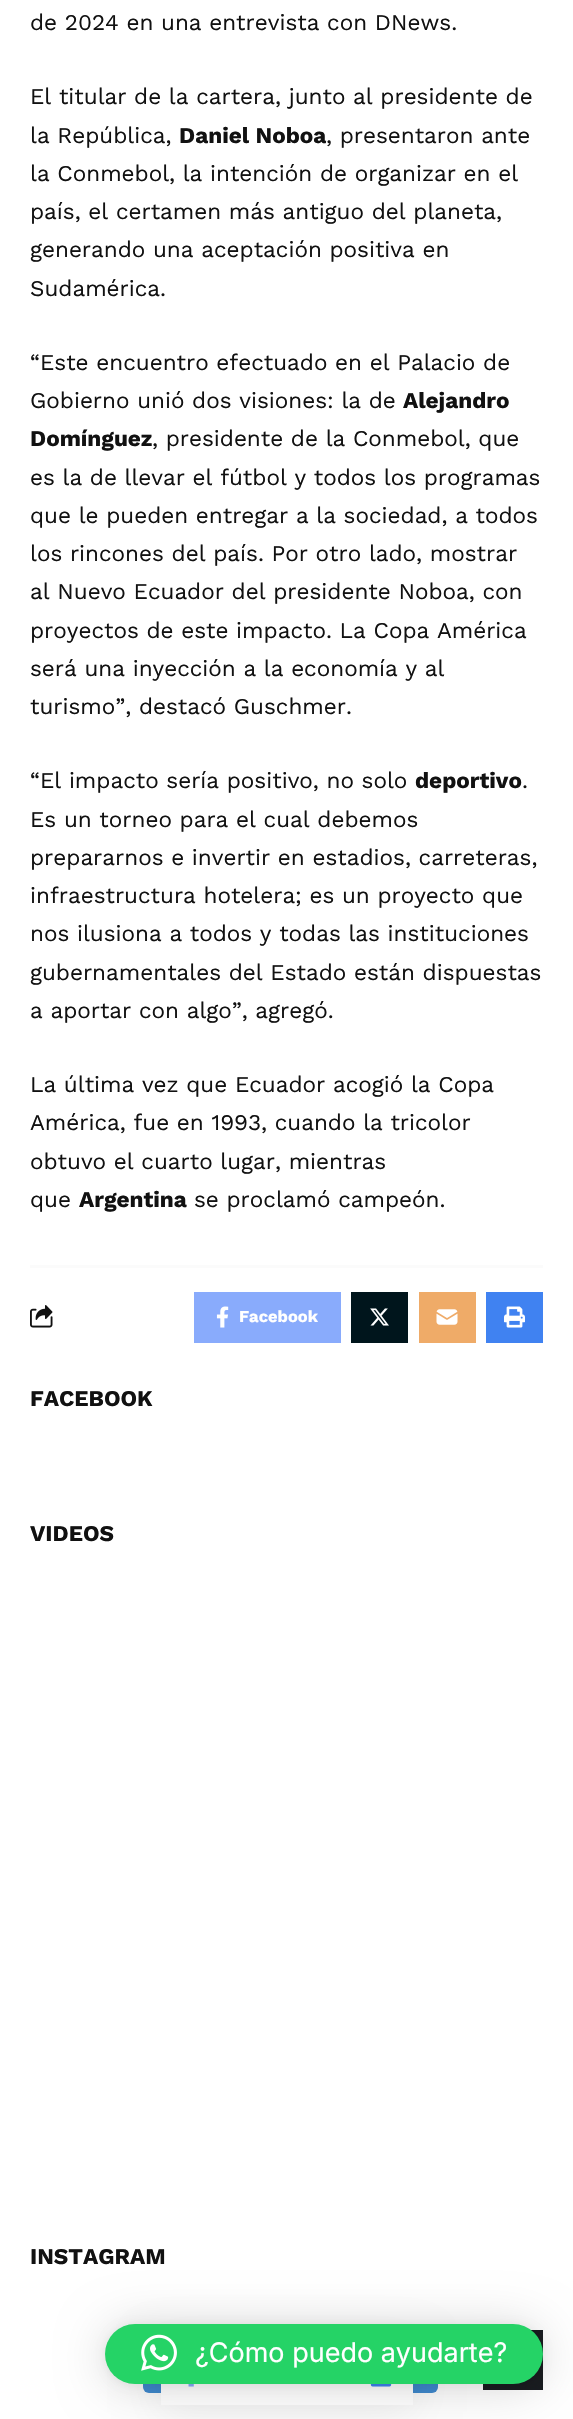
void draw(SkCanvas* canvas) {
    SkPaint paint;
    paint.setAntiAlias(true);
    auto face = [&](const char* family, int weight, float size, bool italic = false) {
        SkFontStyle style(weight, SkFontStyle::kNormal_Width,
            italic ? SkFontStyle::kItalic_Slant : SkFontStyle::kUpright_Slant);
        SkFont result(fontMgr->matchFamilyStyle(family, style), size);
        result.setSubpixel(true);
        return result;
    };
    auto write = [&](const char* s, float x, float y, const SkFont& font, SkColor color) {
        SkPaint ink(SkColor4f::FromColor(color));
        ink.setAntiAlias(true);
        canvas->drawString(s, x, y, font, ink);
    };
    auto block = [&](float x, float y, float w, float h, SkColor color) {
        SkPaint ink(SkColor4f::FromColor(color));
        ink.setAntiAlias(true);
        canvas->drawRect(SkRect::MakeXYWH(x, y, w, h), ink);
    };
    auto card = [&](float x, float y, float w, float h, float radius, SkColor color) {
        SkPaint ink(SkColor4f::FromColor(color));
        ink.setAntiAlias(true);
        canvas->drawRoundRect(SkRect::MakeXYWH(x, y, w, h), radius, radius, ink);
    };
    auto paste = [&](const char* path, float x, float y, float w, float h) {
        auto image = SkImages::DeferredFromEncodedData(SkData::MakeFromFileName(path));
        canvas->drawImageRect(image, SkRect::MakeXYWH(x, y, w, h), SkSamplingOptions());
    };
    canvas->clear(SK_ColorWHITE);
    auto kFont1 = face("Work Sans", 400, 22.5f);
    write("de 2024 en una entrevista con DNews.", 30, 30, kFont1, SkColorSetRGB(17, 17, 17));
    write("El titular de la cartera, junto al presidente de", 30, 104, kFont1, SkColorSetRGB(17, 17, 17));
    write("la República,", 30, 143, kFont1, SkColorSetRGB(17, 17, 17));
    auto kFont2 = face("Work Sans", 700, 22.5f);
    write("Daniel Noboa", 179, 143, kFont2, SkColorSetRGB(17, 17, 17));
    write(", presentaron ante", 326, 143, kFont1, SkColorSetRGB(17, 17, 17));
    write("la Conmebol, la intención de organizar en el", 30, 181, kFont1, SkColorSetRGB(17, 17, 17));
    write("país, el certamen más antiguo del planeta,", 30, 219, kFont1, SkColorSetRGB(17, 17, 17));
    write("generando una aceptación positiva en", 30, 257, kFont1, SkColorSetRGB(17, 17, 17));
    write("Sudamérica.", 30, 296, kFont1, SkColorSetRGB(17, 17, 17));
    write("“Este encuentro efectuado en el Palacio de", 30, 370, kFont1, SkColorSetRGB(17, 17, 17));
    write("Gobierno unió dos visiones: la de", 30, 408, kFont1, SkColorSetRGB(17, 17, 17));
    write("Alejandro", 403, 408, kFont2, SkColorSetRGB(17, 17, 17));
    write("Domínguez", 30, 446, kFont2, SkColorSetRGB(17, 17, 17));
    write(", presidente de la Conmebol, que", 152, 446, kFont1, SkColorSetRGB(17, 17, 17));
    write("es la de llevar el fútbol y todos los programas", 30, 485, kFont1, SkColorSetRGB(17, 17, 17));
    write("que le pueden entregar a la sociedad, a todos", 30, 523, kFont1, SkColorSetRGB(17, 17, 17));
    write("los rincones del país. Por otro lado, mostrar", 30, 561, kFont1, SkColorSetRGB(17, 17, 17));
    write("al Nuevo Ecuador del presidente Noboa, con", 30, 599, kFont1, SkColorSetRGB(17, 17, 17));
    write("proyectos de este impacto. La Copa América", 30, 638, kFont1, SkColorSetRGB(17, 17, 17));
    write("será una inyección a la economía y al", 30, 676, kFont1, SkColorSetRGB(17, 17, 17));
    write("turismo”, destacó Guschmer.", 30, 714, kFont1, SkColorSetRGB(17, 17, 17));
    write("“El impacto sería positivo, no solo", 30, 788, kFont1, SkColorSetRGB(17, 17, 17));
    write("deportivo", 415, 788, kFont2, SkColorSetRGB(17, 17, 17));
    write(".", 522, 788, kFont1, SkColorSetRGB(17, 17, 17));
    write("Es un torneo para el cual debemos", 30, 827, kFont1, SkColorSetRGB(17, 17, 17));
    write("prepararnos e invertir en estadios, carreteras,", 30, 865, kFont1, SkColorSetRGB(17, 17, 17));
    write("infraestructura hotelera; es un proyecto que", 30, 903, kFont1, SkColorSetRGB(17, 17, 17));
    write("nos ilusiona a todos y todas las instituciones", 30, 941, kFont1, SkColorSetRGB(17, 17, 17));
    write("gubernamentales del Estado están dispuestas", 30, 980, kFont1, SkColorSetRGB(17, 17, 17));
    write("a aportar con algo”, agregó.", 30, 1018, kFont1, SkColorSetRGB(17, 17, 17));
    write("La última vez que Ecuador acogió la Copa", 30, 1092, kFont1, SkColorSetRGB(17, 17, 17));
    write("América, fue en 1993, cuando la tricolor", 30, 1130, kFont1, SkColorSetRGB(17, 17, 17));
    write("obtuvo el cuarto lugar, mientras", 30, 1169, kFont1, SkColorSetRGB(17, 17, 17));
    write("que", 30, 1207, kFont1, SkColorSetRGB(17, 17, 17));
    write("Argentina", 79, 1207, kFont2, SkColorSetRGB(17, 17, 17));
    write("se proclamó campeón.", 194, 1207, kFont1, SkColorSetRGB(17, 17, 17));
    card(143, 2343, 295, 50, 6, SkColorSetRGB(64, 139, 209));
    paint.setColor(SkColorSetARGB(18, 0, 0, 0));
    paint.setMaskFilter(SkMaskFilter::MakeBlur(kNormal_SkBlurStyle, 22.5f));
    canvas->drawRect(SkRect::MakeXYWH(161, 2349, 252, 63), paint);
    paint.setMaskFilter(nullptr);
    block(161, 2384, 252, 21, SK_ColorWHITE);
    paste("pic1.png", 188, 2384, 6, 3);
    paste("pic2.png", 370, 2384, 22, 3);
    block(30, 1265, 513, 3, SkColorSetRGB(251, 251, 251));
    paste("pic3.png", 30, 1305, 23, 23);
    block(194, 1292, 147, 51, SkColorSetRGB(137, 171, 252));
    paste("pic4.png", 216, 1306, 13, 22);
    auto kFont3 = face("Work Sans", 700, 16.5f);
    write("Facebook", 239, 1322, kFont3, SK_ColorWHITE);
    block(351, 1292, 57, 51, SkColorSetRGB(0, 21, 28));
    paste("pic5.png", 370, 1308, 19, 18);
    block(419, 1292, 57, 51, SkColorSetRGB(239, 171, 104));
    paste("pic6.png", 436, 1309, 22, 16);
    block(486, 1292, 57, 51, SkColorSetRGB(64, 130, 241));
    paste("pic7.png", 504, 1306, 21, 22);
    write("FACEBOOK", 30, 1406, kFont2, SkColorSetRGB(17, 17, 17));
    write("VIDEOS", 30, 1541, kFont2, SkColorSetRGB(17, 17, 17));
    write("INSTAGRAM", 30, 2264, kFont2, SkColorSetRGB(17, 17, 17));
    block(483, 2330, 60, 60, SkColorSetRGB(25, 28, 32));
    paint.setColor(SkColorSetARGB(41, 0, 0, 0));
    paint.setMaskFilter(SkMaskFilter::MakeBlur(kNormal_SkBlurStyle, 24));
    canvas->drawRoundRect(SkRect::MakeXYWH(105, 2327, 438, 60), 30, 30, paint);
    paint.setMaskFilter(nullptr);
    paint.setColor(SkColorSetARGB(15, 0, 0, 0));
    paint.setMaskFilter(SkMaskFilter::MakeBlur(kNormal_SkBlurStyle, 4.5f));
    canvas->drawRoundRect(SkRect::MakeXYWH(105, 2325, 438, 60), 30, 30, paint);
    paint.setMaskFilter(nullptr);
    card(105, 2324, 438, 60, 30, SkColorSetRGB(37, 211, 102));
    paste("pic8.png", 141, 2334, 36, 37);
    auto kFont4 = face("Inter", 400, 27);
    write("¿Cómo puedo ayudarte?", 195, 2362, kFont4, SK_ColorWHITE);
}
